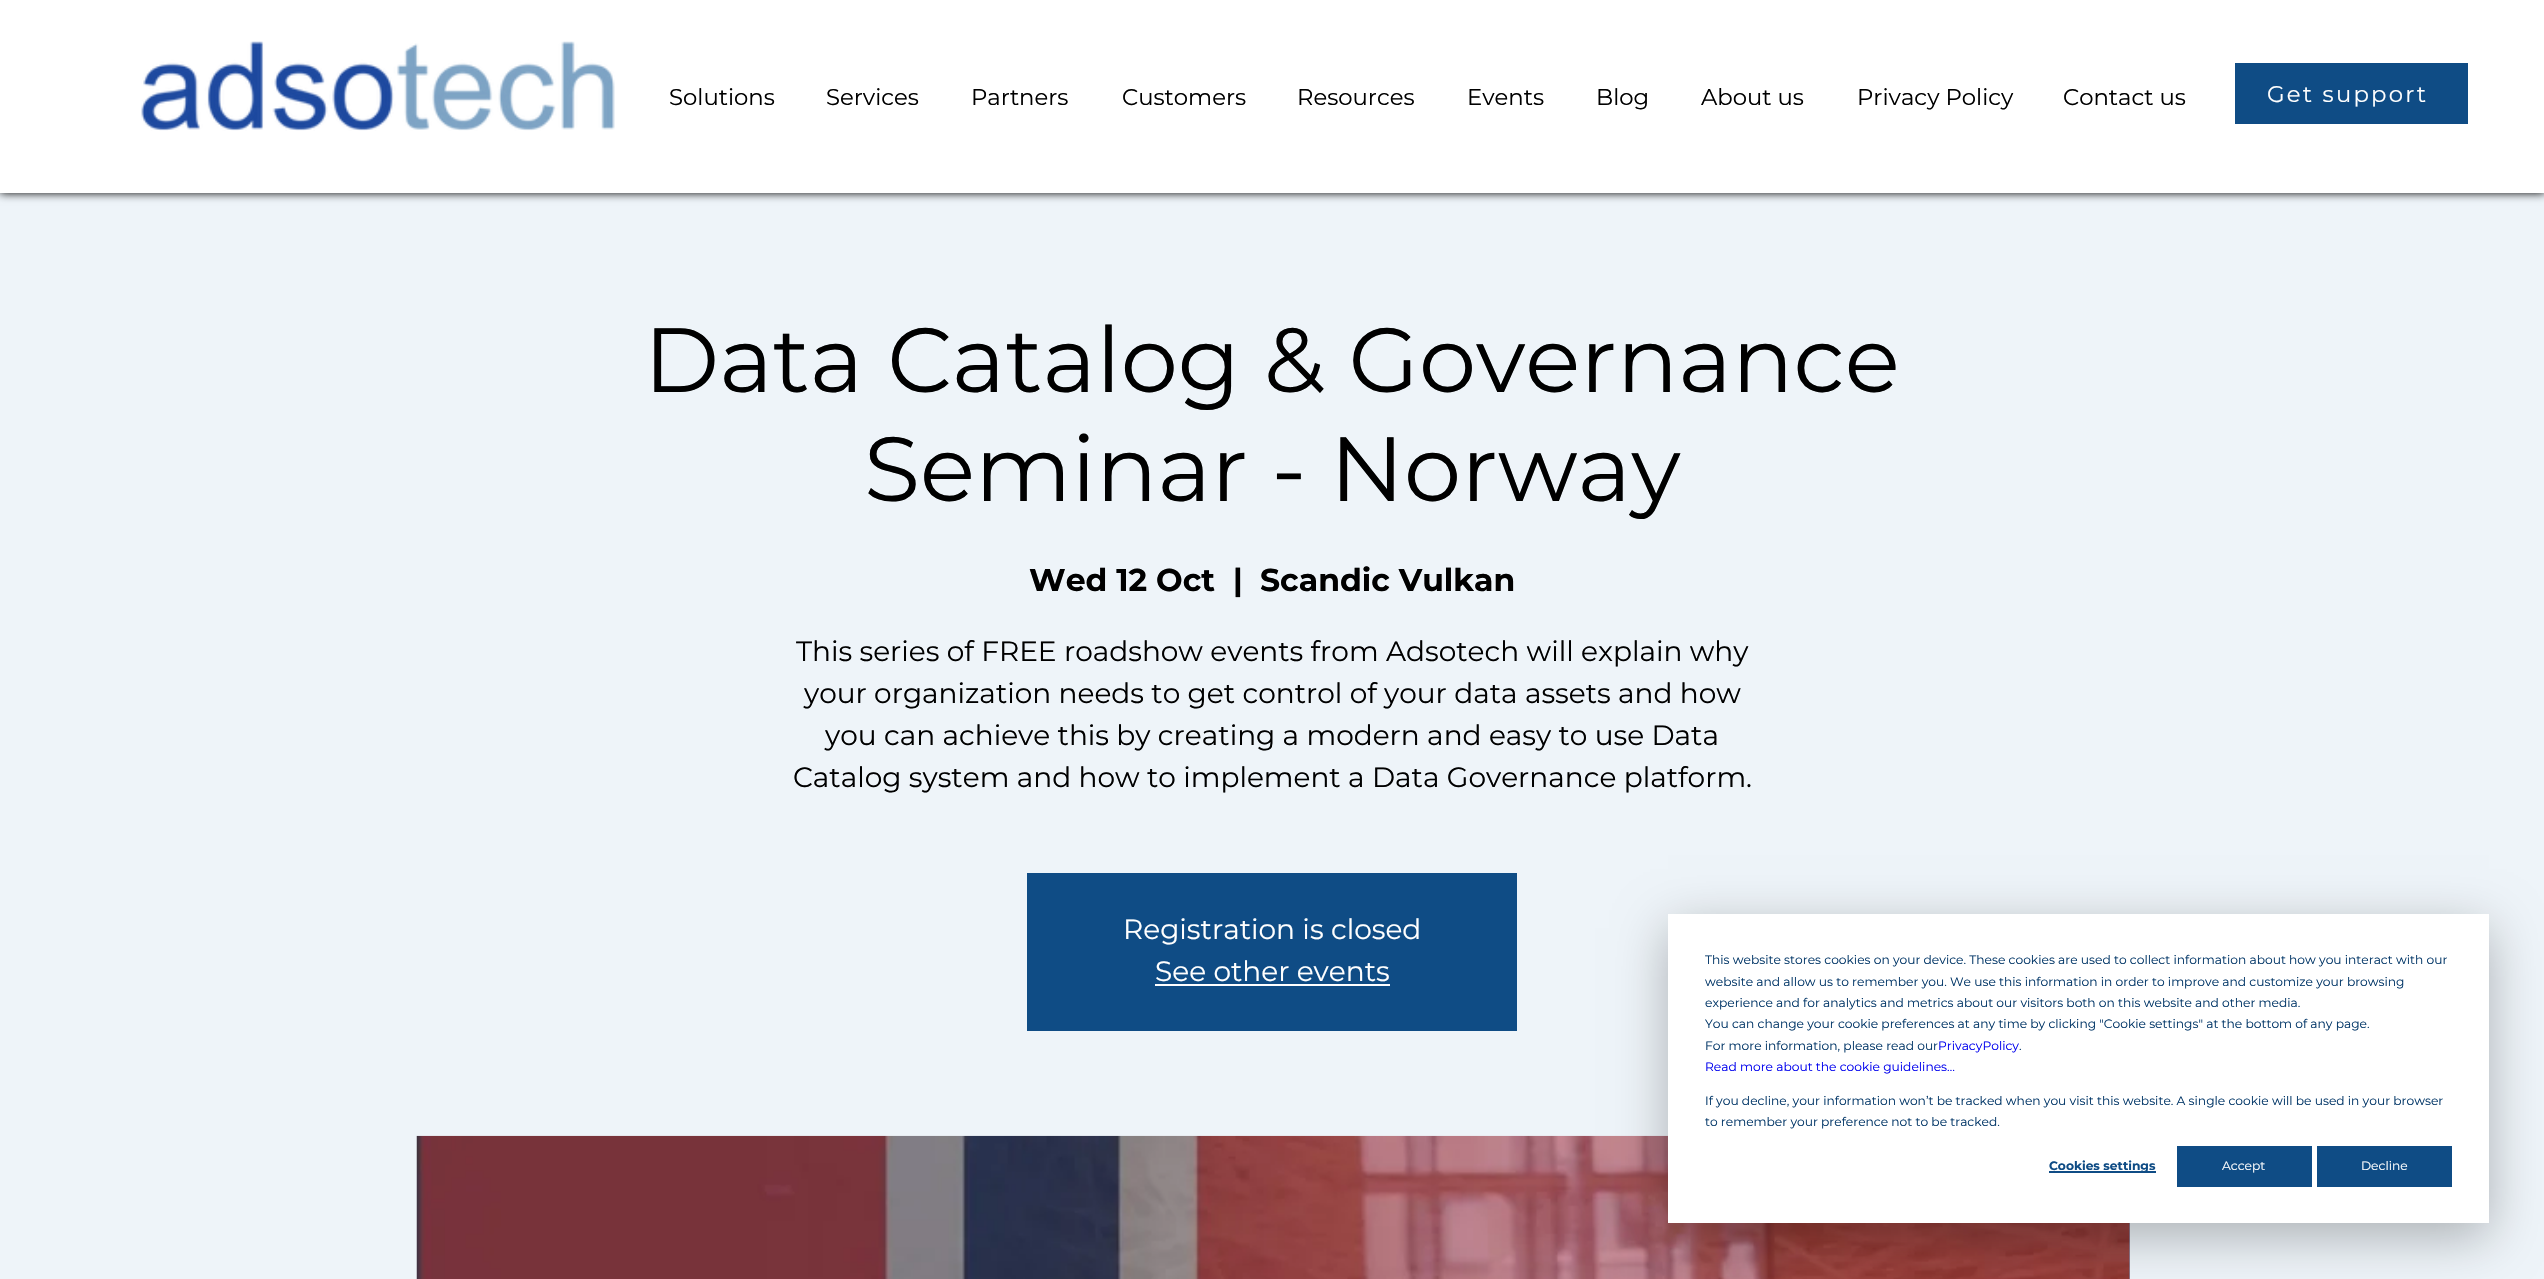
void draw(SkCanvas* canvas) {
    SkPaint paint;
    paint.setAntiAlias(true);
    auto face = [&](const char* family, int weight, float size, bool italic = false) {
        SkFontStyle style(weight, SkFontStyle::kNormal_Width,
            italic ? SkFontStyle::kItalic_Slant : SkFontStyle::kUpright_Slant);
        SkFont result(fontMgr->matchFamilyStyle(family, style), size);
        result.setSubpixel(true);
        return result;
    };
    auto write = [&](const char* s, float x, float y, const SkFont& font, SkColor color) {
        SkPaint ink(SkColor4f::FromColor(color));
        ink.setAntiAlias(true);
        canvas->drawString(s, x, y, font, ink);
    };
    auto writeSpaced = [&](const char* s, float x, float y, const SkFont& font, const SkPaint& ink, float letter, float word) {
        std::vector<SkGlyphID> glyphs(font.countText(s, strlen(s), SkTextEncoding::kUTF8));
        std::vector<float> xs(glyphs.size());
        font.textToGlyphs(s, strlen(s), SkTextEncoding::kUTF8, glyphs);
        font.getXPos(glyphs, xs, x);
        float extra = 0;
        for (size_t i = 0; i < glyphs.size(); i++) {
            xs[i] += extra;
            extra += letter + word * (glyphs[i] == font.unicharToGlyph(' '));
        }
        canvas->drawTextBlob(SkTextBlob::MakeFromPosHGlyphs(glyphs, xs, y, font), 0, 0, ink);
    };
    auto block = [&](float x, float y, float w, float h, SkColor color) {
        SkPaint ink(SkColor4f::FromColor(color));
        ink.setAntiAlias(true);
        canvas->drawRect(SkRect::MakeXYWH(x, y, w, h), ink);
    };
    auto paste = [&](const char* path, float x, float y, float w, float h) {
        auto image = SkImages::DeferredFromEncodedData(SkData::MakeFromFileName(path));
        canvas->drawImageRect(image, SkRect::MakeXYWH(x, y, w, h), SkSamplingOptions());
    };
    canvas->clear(SkColorSetRGB(238, 244, 249));
    paint.setColor(SK_ColorBLACK);
    paint.setMaskFilter(SkMaskFilter::MakeBlur(kNormal_SkBlurStyle, 4.5f));
    canvas->drawRect(SkRect::MakeXYWH(0, 0, 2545, 193), paint);
    paint.setMaskFilter(nullptr);
    block(0, 0, 2544, 193, SK_ColorWHITE);
    paste("pic1.png", 141, 41, 474, 90);
    auto kFont1 = face("Montserrat", 400, 22.75f);
    write("Solutions", 669, 105, kFont1, SK_ColorBLACK);
    write("Services", 826, 105, kFont1, SK_ColorBLACK);
    write("Partners", 971, 105, kFont1, SK_ColorBLACK);
    write("Customers", 1122, 105, kFont1, SK_ColorBLACK);
    write("Resources", 1297, 105, kFont1, SK_ColorBLACK);
    write("Events", 1467, 105, kFont1, SK_ColorBLACK);
    write("Blog", 1596, 105, kFont1, SK_ColorBLACK);
    write("About us", 1701, 105, kFont1, SK_ColorBLACK);
    write("Privacy Policy", 1857, 105, kFont1, SK_ColorBLACK);
    write("Contact us", 2063, 105, kFont1, SK_ColorBLACK);
    block(2235, 63, 233, 61, SkColorSetRGB(15, 76, 133));
    paint.setColor(SK_ColorWHITE);
    writeSpaced("Get support", 2267, 102, kFont1, paint, 2.25f, 0);
    auto kFont2 = face("Montserrat", 400, 91);
    write("Data Catalog & Governance", 644, 392, kFont2, SK_ColorBLACK);
    write("Seminar - Norway", 864, 501, kFont2, SK_ColorBLACK);
    auto kFont3 = face("Montserrat", 700, 31.5f);
    write("Wed 12 Oct", 1029, 591, kFont3, SK_ColorBLACK);
    write("|", 1233, 591, kFont3, SK_ColorBLACK);
    write("Scandic Vulkan", 1260, 591, kFont3, SK_ColorBLACK);
    auto kFont4 = face("Montserrat", 400, 28);
    write("This series of FREE roadshow events from Adsotech will explain why", 796, 661, kFont4, SK_ColorBLACK);
    write("your organization needs to get control of your data assets and how", 804, 703, kFont4, SK_ColorBLACK);
    write("you can achieve this by creating a modern and easy to use Data", 825, 745, kFont4, SK_ColorBLACK);
    write("Catalog system and how to implement a Data Governance platform.", 793, 787, kFont4, SK_ColorBLACK);
    block(1027, 873, 490, 158, SkColorSetRGB(15, 76, 133));
    write("Registration is closed", 1123, 939, kFont4, SK_ColorWHITE);
    write("See other events", 1155, 981, kFont4, SK_ColorWHITE);
    block(1155, 984, 235, 2, SK_ColorWHITE);
    block(2129, 1223, 1, 56, SkColorSetRGB(131, 183, 230));
    paste("pic2.png", 416, 1135, 1714, 144);
    paint.setColor(SkColorSetARGB(71, 0, 0, 0));
    paint.setMaskFilter(SkMaskFilter::MakeBlur(kNormal_SkBlurStyle, 24.5f));
    canvas->drawRect(SkRect::MakeXYWH(1668, 928, 821, 309), paint);
    paint.setMaskFilter(nullptr);
    block(1668, 914, 821, 309, SK_ColorWHITE);
    auto kFont5 = face("Montserrat", 400, 12.25f);
    write("This website stores cookies on your device. These cookies are used to collect information about how you interact with our", 1705, 964, kFont5, SkColorSetRGB(3, 55, 104));
    write("website and allow us to remember you. We use this information in order to improve and customize your browsing", 1705, 986, kFont5, SkColorSetRGB(3, 55, 104));
    write("experience and for analytics and metrics about our visitors both on this website and other media.", 1705, 1007, kFont5, SkColorSetRGB(3, 55, 104));
    write("You can change your cookie preferences at any time by clicking \"Cookie settings\" at the bottom of any page.", 1705, 1028, kFont5, SkColorSetRGB(3, 55, 104));
    write("For more information, please read our", 1705, 1050, kFont5, SkColorSetRGB(3, 55, 104));
    write("PrivacyPolicy", 1938, 1050, kFont5, SkColorSetRGB(0, 0, 238));
    write(".", 2019, 1050, kFont5, SkColorSetRGB(3, 55, 104));
    write("Read more about the cookie guidelines…", 1705, 1071, kFont5, SkColorSetRGB(0, 0, 238));
    write("If you decline, your information won’t be tracked when you visit this website. A single cookie will be used in your browser", 1705, 1105, kFont5, SkColorSetRGB(3, 55, 104));
    write("to remember your preference not to be tracked.", 1705, 1126, kFont5, SkColorSetRGB(3, 55, 104));
    block(2049, 1171, 107, 2, SkColorSetRGB(15, 76, 133));
    auto kFont6 = face("Montserrat", 700, 12.25f);
    write("Cookies settings", 2049, 1170, kFont6, SkColorSetRGB(15, 76, 133));
    block(2177, 1146, 135, 41, SkColorSetRGB(15, 76, 133));
    write("Accept", 2222, 1170, kFont5, SK_ColorWHITE);
    block(2317, 1146, 135, 41, SkColorSetRGB(15, 76, 133));
    write("Decline", 2361, 1170, kFont5, SK_ColorWHITE);
}
